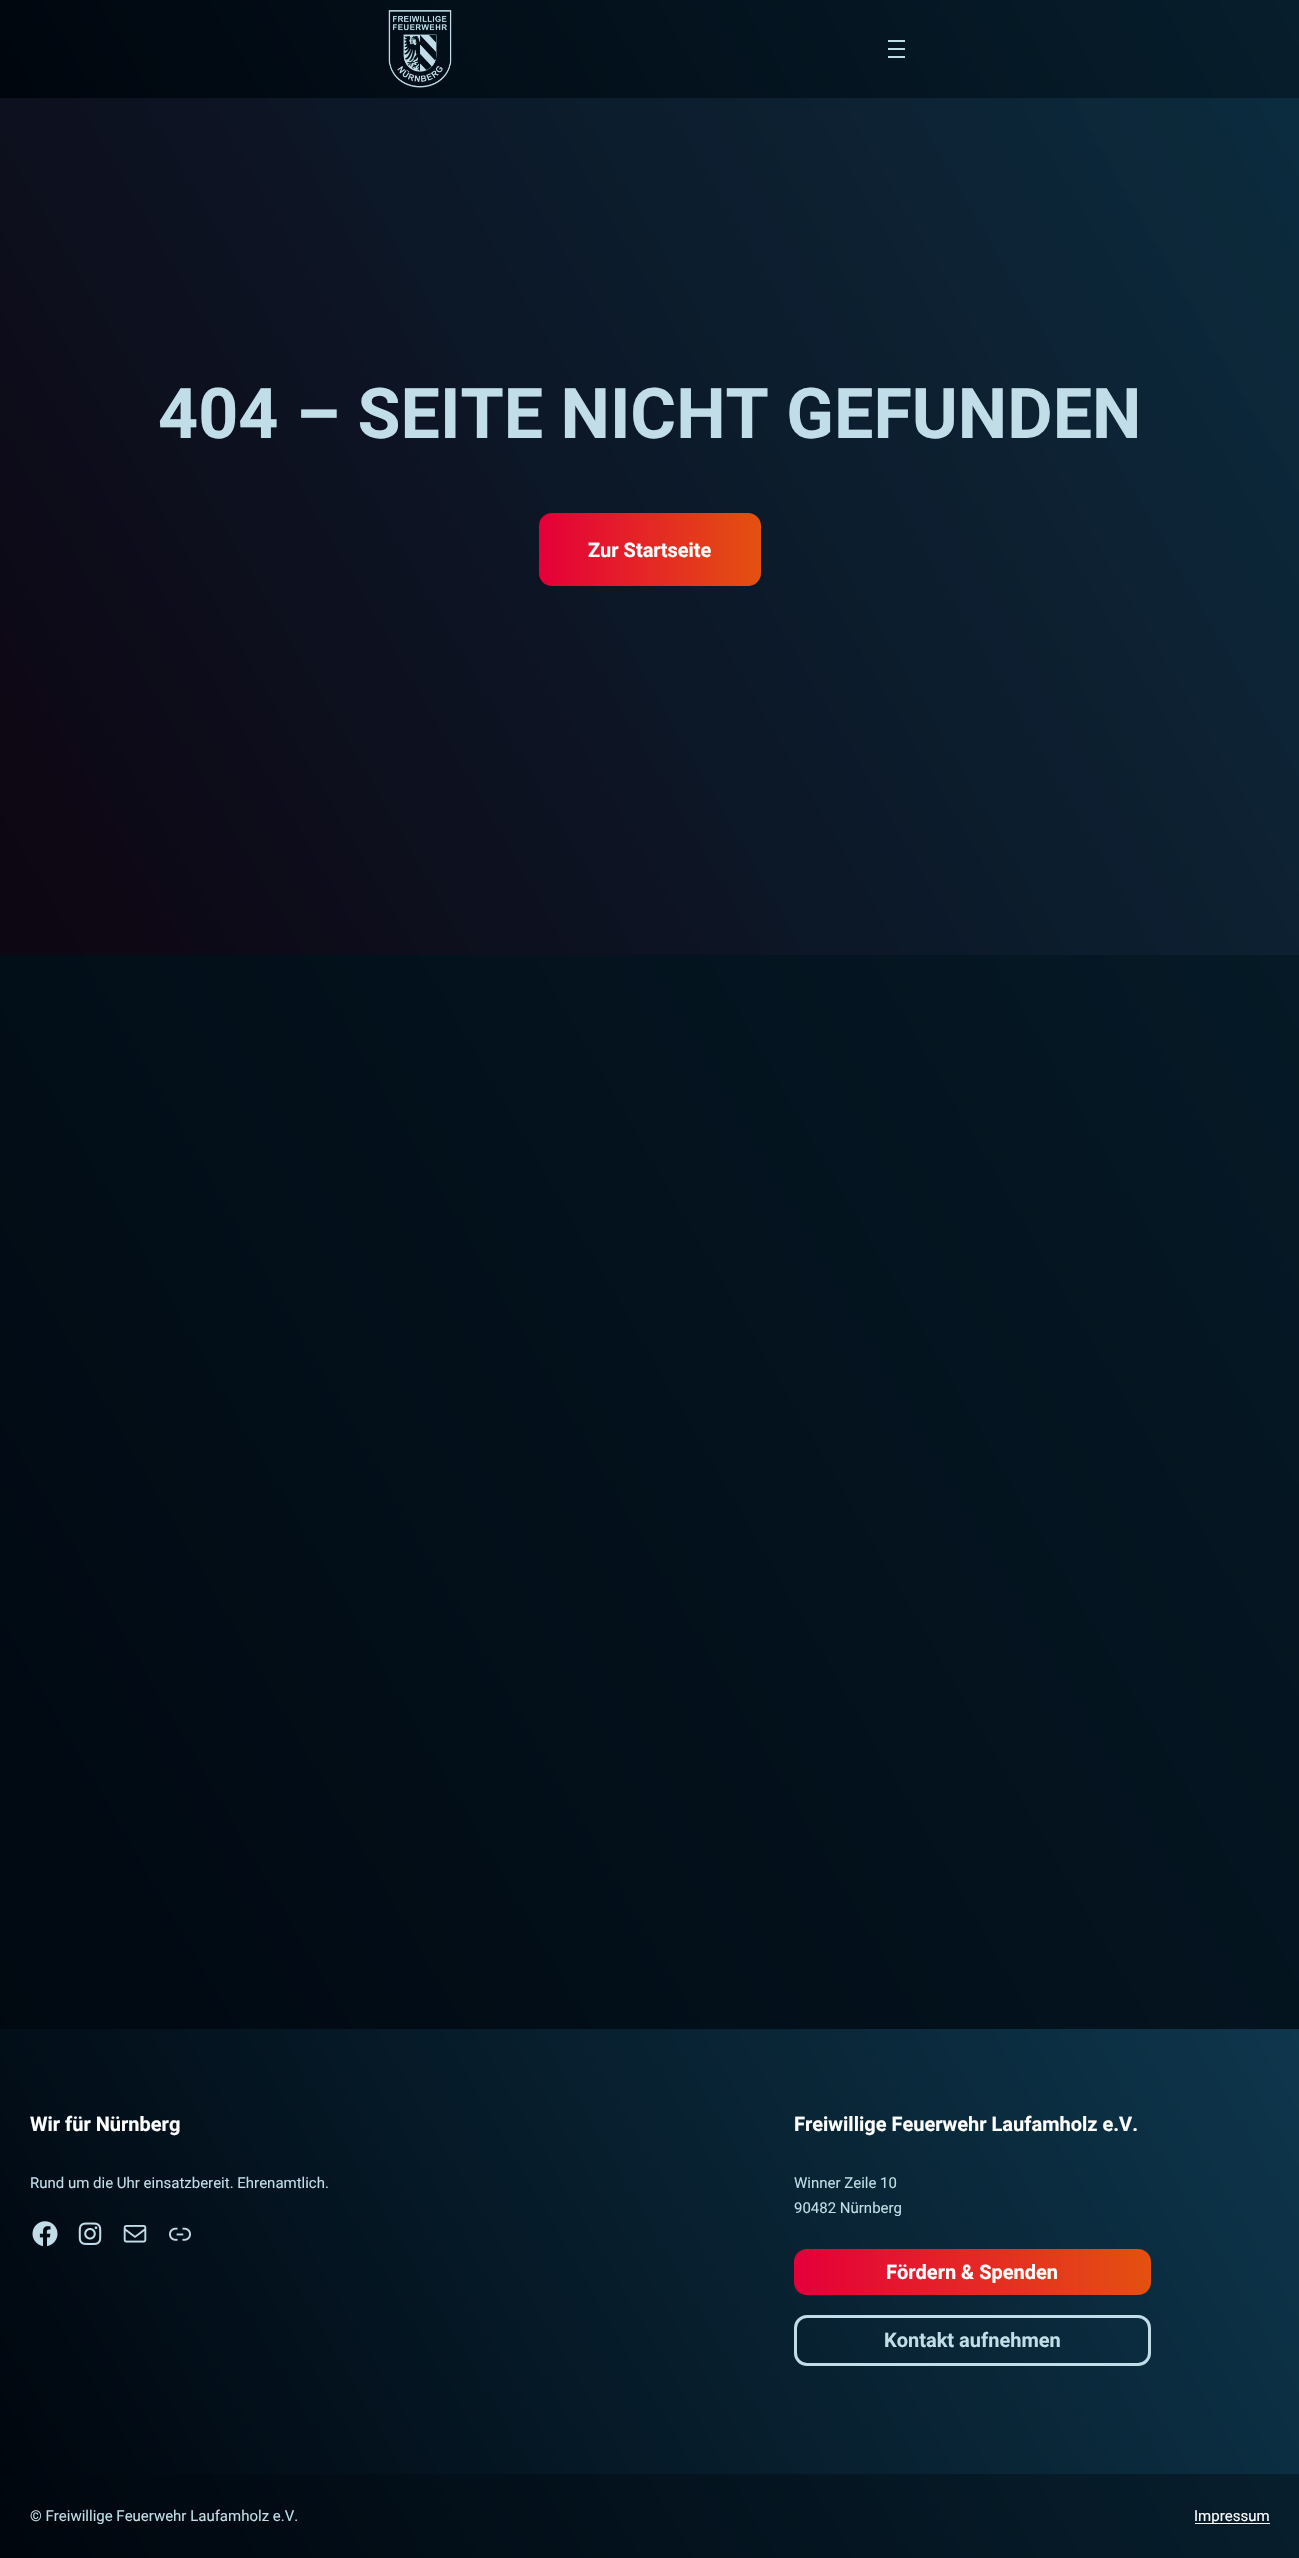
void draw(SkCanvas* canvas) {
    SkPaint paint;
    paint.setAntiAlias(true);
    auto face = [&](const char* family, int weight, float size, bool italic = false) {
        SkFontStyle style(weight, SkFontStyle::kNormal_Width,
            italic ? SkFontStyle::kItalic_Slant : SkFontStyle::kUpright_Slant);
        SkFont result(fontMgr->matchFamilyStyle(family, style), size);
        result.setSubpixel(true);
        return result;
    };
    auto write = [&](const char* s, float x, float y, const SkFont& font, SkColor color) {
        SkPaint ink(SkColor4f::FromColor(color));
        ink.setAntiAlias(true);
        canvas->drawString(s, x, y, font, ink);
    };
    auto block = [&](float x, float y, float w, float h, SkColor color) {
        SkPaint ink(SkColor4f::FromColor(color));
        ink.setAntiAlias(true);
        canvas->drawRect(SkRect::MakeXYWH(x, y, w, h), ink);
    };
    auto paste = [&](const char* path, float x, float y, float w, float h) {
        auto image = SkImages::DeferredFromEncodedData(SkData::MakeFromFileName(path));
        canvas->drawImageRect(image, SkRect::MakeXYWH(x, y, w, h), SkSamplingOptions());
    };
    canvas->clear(SK_ColorWHITE);
    {
        const SkColor colors[] = {SkColorSetRGB(0, 6, 14), SkColorSetRGB(7, 30, 44)};
        const float stops[] = {0.01f, 1};
        const SkPoint ends[] = {{-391, 1881}, {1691, 678}};
        paint.setShader(SkGradientShader::MakeLinear(ends, colors, stops, 2, SkTileMode::kClamp));
        paint.setAlpha(255);
    }
    canvas->drawRect(SkRect::MakeXYWH(0, 98, 1299, 1931), paint);
    {
        const SkColor colors[] = {SkColorSetRGB(0, 6, 14), SkColorSetRGB(7, 30, 44)};
        const float stops[] = {0.01f, 1};
        const SkPoint ends[] = {{141, 342}, {1159, -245}};
        paint.setShader(SkGradientShader::MakeLinear(ends, colors, stops, 2, SkTileMode::kClamp));
        paint.setAlpha(255);
    }
    canvas->drawRect(SkRect::MakeXYWH(0, 0, 1299, 98), paint);
    paste("pic1.png", 388, 10, 64, 78);
    block(888, 40, 17, 2, SkColorSetRGB(193, 222, 232));
    block(888, 48, 17, 2, SkColorSetRGB(193, 222, 232));
    block(888, 56, 17, 2, SkColorSetRGB(193, 222, 232));
    {
        const SkColor colors[] = {SkColorSetARGB(153, 20, 0, 15), SkColorSetARGB(153, 14, 54, 76)};
        const float stops[] = {0.03f, 1};
        const SkPoint ends[] = {{-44, 878}, {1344, 77}};
        paint.setShader(SkGradientShader::MakeLinear(ends, colors, stops, 2, SkTileMode::kClamp));
        paint.setAlpha(255);
    }
    canvas->drawRect(SkRect::MakeXYWH(0, 98, 1299, 857), paint);
    auto kFont1 = face("Roboto", 700, 70);
    write("404 – SEITE NICHT GEFUNDEN", 158, 438, kFont1, SkColorSetRGB(193, 222, 232));
    {
        const SkColor colors[] = {SkColorSetRGB(229, 0, 57), SkColorSetRGB(228, 81, 16)};
        const float stops[] = {0.02f, 1};
        const SkPoint ends[] = {{539, 549}, {761, 549}};
        paint.setShader(SkGradientShader::MakeLinear(ends, colors, stops, 2, SkTileMode::kClamp));
        paint.setAlpha(255);
    }
    canvas->drawRoundRect(SkRect::MakeXYWH(539, 513, 222, 73), 13, 13, paint);
    auto kFont2 = face("Roboto", 700, 20);
    write("Zur Startseite", 588, 557, kFont2, SK_ColorWHITE);
    {
        const SkColor colors[] = {SkColorSetRGB(0, 6, 14), SkColorSetRGB(14, 54, 76)};
        const float stops[] = {0, 1};
        const SkPoint ends[] = {{66, 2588}, {1234, 1914}};
        paint.setShader(SkGradientShader::MakeLinear(ends, colors, stops, 2, SkTileMode::kClamp));
        paint.setAlpha(255);
    }
    canvas->drawRect(SkRect::MakeXYWH(0, 2029, 1299, 445), paint);
    write("Wir für Nürnberg", 30, 2131, kFont2, SK_ColorWHITE);
    auto kFont3 = face("Roboto", 400, 15);
    write("Rund um die Uhr einsatzbereit. Ehrenamtlich.", 30, 2188, kFont3, SkColorSetRGB(193, 222, 232));
    paste("pic2.png", 32, 2221, 26, 26);
    paste("pic3.png", 78, 2222, 24, 23);
    paste("pic4.png", 123, 2225, 24, 18);
    paste("pic5.png", 169, 2227, 22, 14);
    write("Freiwillige Feuerwehr Laufamholz e.V.", 794, 2131, kFont2, SK_ColorWHITE);
    write("Winner Zeile 10", 794, 2188, kFont3, SkColorSetRGB(193, 222, 232));
    write("90482 Nürnberg", 794, 2213, kFont3, SkColorSetRGB(193, 222, 232));
    {
        const SkColor colors[] = {SkColorSetRGB(229, 0, 57), SkColorSetRGB(228, 81, 16)};
        const float stops[] = {0.02f, 1};
        const SkPoint ends[] = {{794, 2272}, {1151, 2272}};
        paint.setShader(SkGradientShader::MakeLinear(ends, colors, stops, 2, SkTileMode::kClamp));
        paint.setAlpha(255);
    }
    canvas->drawRoundRect(SkRect::MakeXYWH(794, 2249, 357, 46), 13, 13, paint);
    write("Fördern & Spenden", 886, 2279, kFont2, SK_ColorWHITE);
    paint.setStyle(SkPaint::kStroke_Style);
    paint.setStrokeWidth(3);
    paint.setShader(nullptr);
    paint.setColor(SkColorSetRGB(193, 222, 232));
    canvas->drawRoundRect(SkRect::MakeXYWH(795.5f, 2316.5f, 354, 48), 11.5f, 11.5f, paint);
    write("Kontakt aufnehmen", 884, 2347, kFont2, SkColorSetRGB(193, 222, 232));
    paint.setStyle(SkPaint::kFill_Style);
    {
        const SkColor colors[] = {SkColorSetRGB(0, 6, 14), SkColorSetRGB(7, 30, 44)};
        const float stops[] = {0.01f, 0.98f};
        const SkPoint ends[] = {{144, 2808}, {1156, 2224}};
        paint.setShader(SkGradientShader::MakeLinear(ends, colors, stops, 2, SkTileMode::kClamp));
        paint.setAlpha(255);
    }
    canvas->drawRect(SkRect::MakeXYWH(0, 2474, 1299, 84), paint);
    write("© Freiwillige Feuerwehr Laufamholz e.V.", 30, 2521, kFont3, SkColorSetRGB(193, 222, 232));
    block(1195, 2523, 75, 1, SK_ColorWHITE);
    write("Impressum", 1194, 2521, kFont3, SK_ColorWHITE);
}
